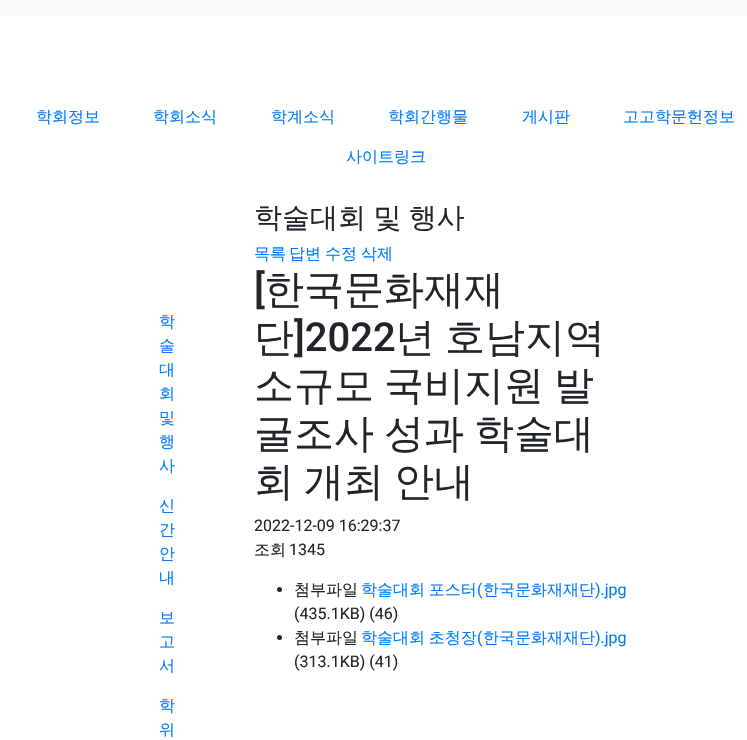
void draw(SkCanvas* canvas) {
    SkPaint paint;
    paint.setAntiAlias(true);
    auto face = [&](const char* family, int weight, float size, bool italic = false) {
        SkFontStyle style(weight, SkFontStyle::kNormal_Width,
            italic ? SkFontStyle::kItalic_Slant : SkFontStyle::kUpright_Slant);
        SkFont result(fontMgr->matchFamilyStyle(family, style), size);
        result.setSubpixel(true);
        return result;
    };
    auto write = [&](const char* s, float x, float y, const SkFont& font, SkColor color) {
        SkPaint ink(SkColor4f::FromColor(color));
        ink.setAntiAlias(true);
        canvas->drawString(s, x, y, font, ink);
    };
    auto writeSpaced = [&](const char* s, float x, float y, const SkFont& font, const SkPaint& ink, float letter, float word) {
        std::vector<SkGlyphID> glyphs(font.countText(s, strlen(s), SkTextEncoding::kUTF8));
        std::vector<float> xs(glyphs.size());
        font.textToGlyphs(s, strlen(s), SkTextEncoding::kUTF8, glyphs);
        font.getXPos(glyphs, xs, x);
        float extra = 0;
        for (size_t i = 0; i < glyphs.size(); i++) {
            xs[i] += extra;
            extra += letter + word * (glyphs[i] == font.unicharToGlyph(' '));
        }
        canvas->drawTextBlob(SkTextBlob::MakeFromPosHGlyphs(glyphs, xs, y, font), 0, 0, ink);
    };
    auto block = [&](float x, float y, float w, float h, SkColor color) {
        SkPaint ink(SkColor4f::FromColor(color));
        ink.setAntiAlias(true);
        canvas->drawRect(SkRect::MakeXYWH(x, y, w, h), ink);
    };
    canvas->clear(SK_ColorWHITE);
    block(0, 0, 747, 16, SkColorSetRGB(248, 249, 250));
    auto kFont1 = face("WenQuanYi Zen Hei", 500, 16);
    write("학회정보", 36, 122, kFont1, SkColorSetRGB(0, 123, 255));
    write("학회소식", 153, 122, kFont1, SkColorSetRGB(0, 123, 255));
    write("학계소식", 271, 122, kFont1, SkColorSetRGB(0, 123, 255));
    write("학회간행물", 388, 122, kFont1, SkColorSetRGB(0, 123, 255));
    write("게시판", 522, 122, kFont1, SkColorSetRGB(0, 123, 255));
    write("고고학문헌정보", 623, 122, kFont1, SkColorSetRGB(0, 123, 255));
    write("사이트링크", 346, 162, kFont1, SkColorSetRGB(0, 123, 255));
    write("학", 159, 327, kFont1, SkColorSetRGB(0, 123, 255));
    write("술", 159, 351, kFont1, SkColorSetRGB(0, 123, 255));
    write("대", 159, 375, kFont1, SkColorSetRGB(0, 123, 255));
    write("회", 159, 399, kFont1, SkColorSetRGB(0, 123, 255));
    write("및", 159, 423, kFont1, SkColorSetRGB(0, 123, 255));
    write("행", 159, 447, kFont1, SkColorSetRGB(0, 123, 255));
    write("사", 159, 471, kFont1, SkColorSetRGB(0, 123, 255));
    write("신", 159, 511, kFont1, SkColorSetRGB(0, 123, 255));
    write("간", 159, 535, kFont1, SkColorSetRGB(0, 123, 255));
    write("안", 159, 559, kFont1, SkColorSetRGB(0, 123, 255));
    write("내", 159, 583, kFont1, SkColorSetRGB(0, 123, 255));
    write("보", 159, 623, kFont1, SkColorSetRGB(0, 123, 255));
    write("고", 159, 647, kFont1, SkColorSetRGB(0, 123, 255));
    write("서", 159, 671, kFont1, SkColorSetRGB(0, 123, 255));
    write("학", 159, 711, kFont1, SkColorSetRGB(0, 123, 255));
    write("위", 159, 735, kFont1, SkColorSetRGB(0, 123, 255));
    auto kFont2 = face("WenQuanYi Zen Hei", 500, 28);
    paint.setColor(SkColorSetRGB(33, 37, 41));
    writeSpaced("학술대회 및 행사", 254, 227, kFont2, paint, 0, -1);
    write("목록", 254, 259, kFont1, SkColorSetRGB(0, 123, 255));
    write("답변", 289, 259, kFont1, SkColorSetRGB(0, 123, 255));
    write("수정", 325, 259, kFont1, SkColorSetRGB(0, 123, 255));
    write("삭제", 361, 259, kFont1, SkColorSetRGB(0, 123, 255));
    auto kFont3 = face("Roboto", 500, 40);
    write("[", 254, 303, kFont3, SkColorSetRGB(33, 37, 41));
    auto kFont4 = face("WenQuanYi Zen Hei", 500, 40);
    write("한국문화재재", 264, 303, kFont4, SkColorSetRGB(33, 37, 41));
    write("단", 254, 351, kFont4, SkColorSetRGB(33, 37, 41));
    write("]2022", 294, 351, kFont3, SkColorSetRGB(33, 37, 41));
    writeSpaced("년 호남지역", 395, 351, kFont4, paint, 0, -2);
    writeSpaced("소규모 국비지원 발", 254, 399, kFont4, paint, 0, -2);
    writeSpaced("굴조사 성과 학술대", 254, 447, kFont4, paint, 0, -2);
    writeSpaced("회 개최 안내", 254, 495, kFont4, paint, 0, -2);
    auto kFont5 = face("Roboto", 400, 16);
    write("2022-12-09 16:29:37", 254, 531, kFont5, SkColorSetRGB(33, 37, 41));
    write("조회", 254, 555, kFont1, SkColorSetRGB(33, 37, 41));
    write("1345", 289, 555, kFont5, SkColorSetRGB(33, 37, 41));
    canvas->drawCircle(279.5f, 589.5f, 2.5f, paint);
    write("첨부파일", 294, 595, kFont1, SkColorSetRGB(33, 37, 41));
    paint.setColor(SkColorSetRGB(0, 123, 255));
    writeSpaced("학술대회 포스터", 361, 595, kFont1, paint, 0, -1);
    write("(", 477, 595, kFont5, SkColorSetRGB(0, 123, 255));
    write("한국문화재재단", 483, 595, kFont1, SkColorSetRGB(0, 123, 255));
    write(").jpg", 595, 595, kFont5, SkColorSetRGB(0, 123, 255));
    write("(435.1KB) (46)", 294, 619, kFont5, SkColorSetRGB(33, 37, 41));
    paint.setColor(SkColorSetRGB(33, 37, 41));
    canvas->drawCircle(279.5f, 637.5f, 2.5f, paint);
    write("첨부파일", 294, 643, kFont1, SkColorSetRGB(33, 37, 41));
    paint.setColor(SkColorSetRGB(0, 123, 255));
    writeSpaced("학술대회 초청장", 361, 643, kFont1, paint, 0, -1);
    write("(", 477, 643, kFont5, SkColorSetRGB(0, 123, 255));
    write("한국문화재재단", 483, 643, kFont1, SkColorSetRGB(0, 123, 255));
    write(").jpg", 595, 643, kFont5, SkColorSetRGB(0, 123, 255));
    write("(313.1KB) (41)", 294, 667, kFont5, SkColorSetRGB(33, 37, 41));
}
